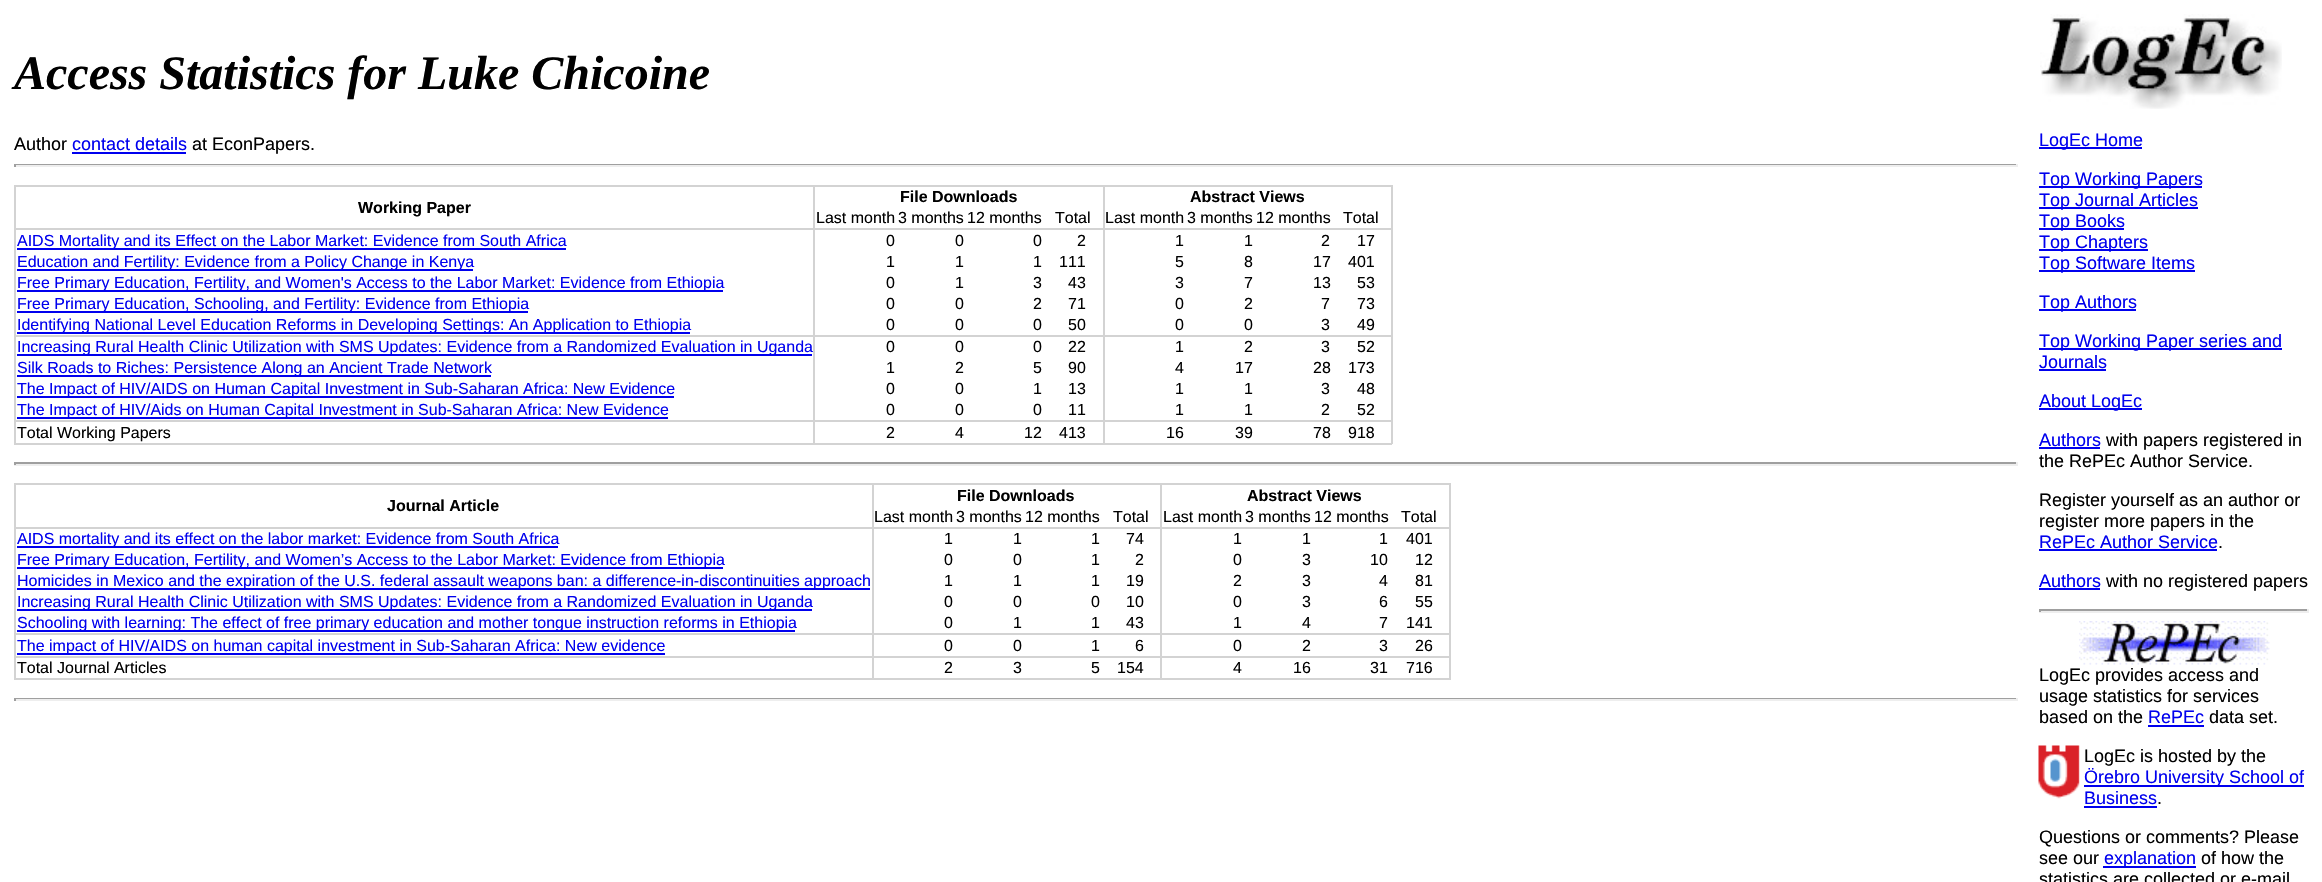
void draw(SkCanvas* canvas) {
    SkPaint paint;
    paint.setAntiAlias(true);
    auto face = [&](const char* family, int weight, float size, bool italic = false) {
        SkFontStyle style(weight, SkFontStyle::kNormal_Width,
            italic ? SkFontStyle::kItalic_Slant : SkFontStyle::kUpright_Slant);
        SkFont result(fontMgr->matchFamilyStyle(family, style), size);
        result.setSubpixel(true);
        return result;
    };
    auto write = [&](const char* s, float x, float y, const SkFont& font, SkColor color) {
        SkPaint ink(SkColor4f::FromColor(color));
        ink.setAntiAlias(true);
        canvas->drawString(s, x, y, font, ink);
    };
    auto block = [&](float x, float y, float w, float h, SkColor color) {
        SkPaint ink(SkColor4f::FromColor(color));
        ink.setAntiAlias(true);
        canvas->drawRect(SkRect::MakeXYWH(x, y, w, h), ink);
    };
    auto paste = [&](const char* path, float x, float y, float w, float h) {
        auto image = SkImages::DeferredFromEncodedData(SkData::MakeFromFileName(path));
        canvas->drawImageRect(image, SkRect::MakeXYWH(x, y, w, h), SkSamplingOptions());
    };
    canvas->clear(SK_ColorWHITE);
    auto kFont1 = face("Liberation Serif", 700, 48, true);
    write("Access Statistics for Luke Chicoine", 14, 89, kFont1, SK_ColorBLACK);
    auto kFont2 = face("Liberation Sans", 400, 18);
    write("Author", 14, 150, kFont2, SK_ColorBLACK);
    write("contact details", 72, 150, kFont2, SkColorSetRGB(0, 0, 238));
    block(72, 152, 114, 2, SkColorSetRGB(0, 0, 238));
    write("at EconPapers.", 192, 150, kFont2, SK_ColorBLACK);
    block(14, 164, 2004, 1, SkColorSetRGB(159, 159, 159));
    block(2016, 164, 2, 3, SkColorSetRGB(238, 238, 238));
    block(14, 165, 2004, 2, SkColorSetRGB(238, 238, 238));
    block(14, 164, 2, 3, SkColorSetRGB(159, 159, 159));
    block(813, 185, 2, 259, SkColorSetRGB(211, 211, 211));
    block(14, 185, 2, 259, SkColorSetRGB(211, 211, 211));
    block(1103, 185, 2, 259, SkColorSetRGB(211, 211, 211));
    block(1391, 185, 2, 259, SkColorSetRGB(211, 211, 211));
    block(14, 185, 1378, 2, SkColorSetRGB(211, 211, 211));
    auto kFont3 = face("Liberation Sans", 700, 16);
    write("File Downloads", 900, 202, kFont3, SK_ColorBLACK);
    write("Abstract Views", 1190, 202, kFont3, SK_ColorBLACK);
    write("Working Paper", 358, 213, kFont3, SK_ColorBLACK);
    block(14, 228, 1378, 2, SkColorSetRGB(211, 211, 211));
    auto kFont4 = face("Liberation Sans", 400, 16);
    write("Last month", 816, 223, kFont4, SK_ColorBLACK);
    write("3 months", 898, 223, kFont4, SK_ColorBLACK);
    write("12 months", 967, 223, kFont4, SK_ColorBLACK);
    write("Total", 1055, 223, kFont4, SK_ColorBLACK);
    write("Last month", 1105, 223, kFont4, SK_ColorBLACK);
    write("3 months", 1187, 223, kFont4, SK_ColorBLACK);
    write("12 months", 1256, 223, kFont4, SK_ColorBLACK);
    write("Total", 1343, 223, kFont4, SK_ColorBLACK);
    block(17, 248, 549, 2, SkColorSetRGB(0, 0, 238));
    write("AIDS Mortality and its Effect on the Labor Market: Evidence from South Africa", 17, 246, kFont4, SkColorSetRGB(0, 0, 238));
    write("0", 886, 246, kFont4, SK_ColorBLACK);
    write("0", 955, 246, kFont4, SK_ColorBLACK);
    write("0", 1033, 246, kFont4, SK_ColorBLACK);
    write("2", 1077, 246, kFont4, SK_ColorBLACK);
    write("1", 1175, 246, kFont4, SK_ColorBLACK);
    write("1", 1244, 246, kFont4, SK_ColorBLACK);
    write("2", 1321, 246, kFont4, SK_ColorBLACK);
    write("17", 1357, 246, kFont4, SK_ColorBLACK);
    block(17, 269, 456, 2, SkColorSetRGB(0, 0, 238));
    write("Education and Fertility: Evidence from a Policy Change in Kenya", 17, 267, kFont4, SkColorSetRGB(0, 0, 238));
    write("1", 886, 267, kFont4, SK_ColorBLACK);
    write("1", 955, 267, kFont4, SK_ColorBLACK);
    write("1", 1033, 267, kFont4, SK_ColorBLACK);
    write("111", 1059, 267, kFont4, SK_ColorBLACK);
    write("5", 1175, 267, kFont4, SK_ColorBLACK);
    write("8", 1244, 267, kFont4, SK_ColorBLACK);
    write("17", 1313, 267, kFont4, SK_ColorBLACK);
    write("401", 1348, 267, kFont4, SK_ColorBLACK);
    block(17, 290, 706, 2, SkColorSetRGB(0, 0, 238));
    write("Free Primary Education, Fertility, and Women's Access to the Labor Market: Evidence from Ethiopia", 17, 288, kFont4, SkColorSetRGB(0, 0, 238));
    write("0", 886, 288, kFont4, SK_ColorBLACK);
    write("1", 955, 288, kFont4, SK_ColorBLACK);
    write("3", 1033, 288, kFont4, SK_ColorBLACK);
    write("43", 1068, 288, kFont4, SK_ColorBLACK);
    write("3", 1175, 288, kFont4, SK_ColorBLACK);
    write("7", 1244, 288, kFont4, SK_ColorBLACK);
    write("13", 1313, 288, kFont4, SK_ColorBLACK);
    write("53", 1357, 288, kFont4, SK_ColorBLACK);
    block(17, 311, 511, 2, SkColorSetRGB(0, 0, 238));
    write("Free Primary Education, Schooling, and Fertility: Evidence from Ethiopia", 17, 309, kFont4, SkColorSetRGB(0, 0, 238));
    write("0", 886, 309, kFont4, SK_ColorBLACK);
    write("0", 955, 309, kFont4, SK_ColorBLACK);
    write("2", 1033, 309, kFont4, SK_ColorBLACK);
    write("71", 1068, 309, kFont4, SK_ColorBLACK);
    write("0", 1175, 309, kFont4, SK_ColorBLACK);
    write("2", 1244, 309, kFont4, SK_ColorBLACK);
    write("7", 1321, 309, kFont4, SK_ColorBLACK);
    write("73", 1357, 309, kFont4, SK_ColorBLACK);
    block(14, 335, 1378, 2, SkColorSetRGB(211, 211, 211));
    block(17, 332, 673, 2, SkColorSetRGB(0, 0, 238));
    write("Identifying National Level Education Reforms in Developing Settings: An Application to Ethiopia", 17, 330, kFont4, SkColorSetRGB(0, 0, 238));
    write("0", 886, 330, kFont4, SK_ColorBLACK);
    write("0", 955, 330, kFont4, SK_ColorBLACK);
    write("0", 1033, 330, kFont4, SK_ColorBLACK);
    write("50", 1068, 330, kFont4, SK_ColorBLACK);
    write("0", 1175, 330, kFont4, SK_ColorBLACK);
    write("0", 1244, 330, kFont4, SK_ColorBLACK);
    write("3", 1321, 330, kFont4, SK_ColorBLACK);
    write("49", 1357, 330, kFont4, SK_ColorBLACK);
    block(17, 354, 795, 2, SkColorSetRGB(0, 0, 238));
    write("Increasing Rural Health Clinic Utilization with SMS Updates: Evidence from a Randomized Evaluation in Uganda", 17, 352, kFont4, SkColorSetRGB(0, 0, 238));
    write("0", 886, 352, kFont4, SK_ColorBLACK);
    write("0", 955, 352, kFont4, SK_ColorBLACK);
    write("0", 1033, 352, kFont4, SK_ColorBLACK);
    write("22", 1068, 352, kFont4, SK_ColorBLACK);
    write("1", 1175, 352, kFont4, SK_ColorBLACK);
    write("2", 1244, 352, kFont4, SK_ColorBLACK);
    write("3", 1321, 352, kFont4, SK_ColorBLACK);
    write("52", 1357, 352, kFont4, SK_ColorBLACK);
    block(17, 375, 474, 2, SkColorSetRGB(0, 0, 238));
    write("Silk Roads to Riches: Persistence Along an Ancient Trade Network", 17, 373, kFont4, SkColorSetRGB(0, 0, 238));
    write("1", 886, 373, kFont4, SK_ColorBLACK);
    write("2", 955, 373, kFont4, SK_ColorBLACK);
    write("5", 1033, 373, kFont4, SK_ColorBLACK);
    write("90", 1068, 373, kFont4, SK_ColorBLACK);
    write("4", 1175, 373, kFont4, SK_ColorBLACK);
    write("17", 1235, 373, kFont4, SK_ColorBLACK);
    write("28", 1313, 373, kFont4, SK_ColorBLACK);
    write("173", 1348, 373, kFont4, SK_ColorBLACK);
    block(17, 396, 657, 2, SkColorSetRGB(0, 0, 238));
    write("The Impact of HIV/AIDS on Human Capital Investment in Sub-Saharan Africa: New Evidence", 17, 394, kFont4, SkColorSetRGB(0, 0, 238));
    write("0", 886, 394, kFont4, SK_ColorBLACK);
    write("0", 955, 394, kFont4, SK_ColorBLACK);
    write("1", 1033, 394, kFont4, SK_ColorBLACK);
    write("13", 1068, 394, kFont4, SK_ColorBLACK);
    write("1", 1175, 394, kFont4, SK_ColorBLACK);
    write("1", 1244, 394, kFont4, SK_ColorBLACK);
    write("3", 1321, 394, kFont4, SK_ColorBLACK);
    write("48", 1357, 394, kFont4, SK_ColorBLACK);
    block(14, 420, 1378, 2, SkColorSetRGB(211, 211, 211));
    block(17, 417, 651, 2, SkColorSetRGB(0, 0, 238));
    write("The Impact of HIV/Aids on Human Capital Investment in Sub-Saharan Africa: New Evidence", 17, 415, kFont4, SkColorSetRGB(0, 0, 238));
    write("0", 886, 415, kFont4, SK_ColorBLACK);
    write("0", 955, 415, kFont4, SK_ColorBLACK);
    write("0", 1033, 415, kFont4, SK_ColorBLACK);
    write("11", 1068, 415, kFont4, SK_ColorBLACK);
    write("1", 1175, 415, kFont4, SK_ColorBLACK);
    write("1", 1244, 415, kFont4, SK_ColorBLACK);
    write("2", 1321, 415, kFont4, SK_ColorBLACK);
    write("52", 1357, 415, kFont4, SK_ColorBLACK);
    block(14, 443, 1378, 2, SkColorSetRGB(211, 211, 211));
    write("Total Working Papers", 17, 438, kFont4, SK_ColorBLACK);
    write("2", 886, 438, kFont4, SK_ColorBLACK);
    write("4", 955, 438, kFont4, SK_ColorBLACK);
    write("12", 1024, 438, kFont4, SK_ColorBLACK);
    write("413", 1059, 438, kFont4, SK_ColorBLACK);
    write("16", 1166, 438, kFont4, SK_ColorBLACK);
    write("39", 1235, 438, kFont4, SK_ColorBLACK);
    write("78", 1313, 438, kFont4, SK_ColorBLACK);
    write("918", 1348, 438, kFont4, SK_ColorBLACK);
    block(14, 462, 2004, 2, SkColorSetRGB(159, 159, 159));
    block(2016, 462, 2, 3, SkColorSetRGB(238, 238, 238));
    block(14, 464, 2004, 2, SkColorSetRGB(238, 238, 238));
    block(14, 462, 2, 3, SkColorSetRGB(159, 159, 159));
    block(872, 483, 2, 197, SkColorSetRGB(211, 211, 211));
    block(14, 483, 2, 197, SkColorSetRGB(211, 211, 211));
    block(1160, 483, 2, 197, SkColorSetRGB(211, 211, 211));
    block(1449, 483, 2, 197, SkColorSetRGB(211, 211, 211));
    block(14, 483, 1437, 2, SkColorSetRGB(211, 211, 211));
    write("File Downloads", 957, 501, kFont3, SK_ColorBLACK);
    write("Abstract Views", 1247, 501, kFont3, SK_ColorBLACK);
    write("Journal Article", 387, 511, kFont3, SK_ColorBLACK);
    block(14, 527, 1437, 2, SkColorSetRGB(211, 211, 211));
    write("Last month", 874, 522, kFont4, SK_ColorBLACK);
    write("3 months", 956, 522, kFont4, SK_ColorBLACK);
    write("12 months", 1025, 522, kFont4, SK_ColorBLACK);
    write("Total", 1113, 522, kFont4, SK_ColorBLACK);
    write("Last month", 1163, 522, kFont4, SK_ColorBLACK);
    write("3 months", 1245, 522, kFont4, SK_ColorBLACK);
    write("12 months", 1314, 522, kFont4, SK_ColorBLACK);
    write("Total", 1401, 522, kFont4, SK_ColorBLACK);
    block(17, 546, 541, 2, SkColorSetRGB(0, 0, 238));
    write("AIDS mortality and its effect on the labor market: Evidence from South Africa", 17, 544, kFont4, SkColorSetRGB(0, 0, 238));
    write("1", 944, 544, kFont4, SK_ColorBLACK);
    write("1", 1013, 544, kFont4, SK_ColorBLACK);
    write("1", 1091, 544, kFont4, SK_ColorBLACK);
    write("74", 1126, 544, kFont4, SK_ColorBLACK);
    write("1", 1233, 544, kFont4, SK_ColorBLACK);
    write("1", 1302, 544, kFont4, SK_ColorBLACK);
    write("1", 1379, 544, kFont4, SK_ColorBLACK);
    write("401", 1406, 544, kFont4, SK_ColorBLACK);
    block(17, 567, 706, 2, SkColorSetRGB(0, 0, 238));
    write("Free Primary Education, Fertility, and Women’s Access to the Labor Market: Evidence from Ethiopia", 17, 565, kFont4, SkColorSetRGB(0, 0, 238));
    write("0", 944, 565, kFont4, SK_ColorBLACK);
    write("0", 1013, 565, kFont4, SK_ColorBLACK);
    write("1", 1091, 565, kFont4, SK_ColorBLACK);
    write("2", 1135, 565, kFont4, SK_ColorBLACK);
    write("0", 1233, 565, kFont4, SK_ColorBLACK);
    write("3", 1302, 565, kFont4, SK_ColorBLACK);
    write("10", 1370, 565, kFont4, SK_ColorBLACK);
    write("12", 1415, 565, kFont4, SK_ColorBLACK);
    block(17, 588, 853, 2, SkColorSetRGB(0, 0, 238));
    write("Homicides in Mexico and the expiration of the U.S. federal assault weapons ban: a difference-in-discontinuities approach", 17, 586, kFont4, SkColorSetRGB(0, 0, 238));
    write("1", 944, 586, kFont4, SK_ColorBLACK);
    write("1", 1013, 586, kFont4, SK_ColorBLACK);
    write("1", 1091, 586, kFont4, SK_ColorBLACK);
    write("19", 1126, 586, kFont4, SK_ColorBLACK);
    write("2", 1233, 586, kFont4, SK_ColorBLACK);
    write("3", 1302, 586, kFont4, SK_ColorBLACK);
    write("4", 1379, 586, kFont4, SK_ColorBLACK);
    write("81", 1415, 586, kFont4, SK_ColorBLACK);
    block(17, 609, 795, 2, SkColorSetRGB(0, 0, 238));
    write("Increasing Rural Health Clinic Utilization with SMS Updates: Evidence from a Randomized Evaluation in Uganda", 17, 607, kFont4, SkColorSetRGB(0, 0, 238));
    write("0", 944, 607, kFont4, SK_ColorBLACK);
    write("0", 1013, 607, kFont4, SK_ColorBLACK);
    write("0", 1091, 607, kFont4, SK_ColorBLACK);
    write("10", 1126, 607, kFont4, SK_ColorBLACK);
    write("0", 1233, 607, kFont4, SK_ColorBLACK);
    write("3", 1302, 607, kFont4, SK_ColorBLACK);
    write("6", 1379, 607, kFont4, SK_ColorBLACK);
    write("55", 1415, 607, kFont4, SK_ColorBLACK);
    block(14, 633, 1437, 2, SkColorSetRGB(211, 211, 211));
    block(17, 630, 778, 2, SkColorSetRGB(0, 0, 238));
    write("Schooling with learning: The effect of free primary education and mother tongue instruction reforms in Ethiopia", 17, 628, kFont4, SkColorSetRGB(0, 0, 238));
    write("0", 944, 628, kFont4, SK_ColorBLACK);
    write("1", 1013, 628, kFont4, SK_ColorBLACK);
    write("1", 1091, 628, kFont4, SK_ColorBLACK);
    write("43", 1126, 628, kFont4, SK_ColorBLACK);
    write("1", 1233, 628, kFont4, SK_ColorBLACK);
    write("4", 1302, 628, kFont4, SK_ColorBLACK);
    write("7", 1379, 628, kFont4, SK_ColorBLACK);
    write("141", 1406, 628, kFont4, SK_ColorBLACK);
    block(14, 656, 1437, 2, SkColorSetRGB(211, 211, 211));
    block(17, 653, 648, 2, SkColorSetRGB(0, 0, 238));
    write("The impact of HIV/AIDS on human capital investment in Sub‐Saharan Africa: New evidence", 17, 651, kFont4, SkColorSetRGB(0, 0, 238));
    write("0", 944, 651, kFont4, SK_ColorBLACK);
    write("0", 1013, 651, kFont4, SK_ColorBLACK);
    write("1", 1091, 651, kFont4, SK_ColorBLACK);
    write("6", 1135, 651, kFont4, SK_ColorBLACK);
    write("0", 1233, 651, kFont4, SK_ColorBLACK);
    write("2", 1302, 651, kFont4, SK_ColorBLACK);
    write("3", 1379, 651, kFont4, SK_ColorBLACK);
    write("26", 1415, 651, kFont4, SK_ColorBLACK);
    block(14, 678, 1437, 2, SkColorSetRGB(211, 211, 211));
    write("Total Journal Articles", 17, 673, kFont4, SK_ColorBLACK);
    write("2", 944, 673, kFont4, SK_ColorBLACK);
    write("3", 1013, 673, kFont4, SK_ColorBLACK);
    write("5", 1091, 673, kFont4, SK_ColorBLACK);
    write("154", 1117, 673, kFont4, SK_ColorBLACK);
    write("4", 1233, 673, kFont4, SK_ColorBLACK);
    write("16", 1293, 673, kFont4, SK_ColorBLACK);
    write("31", 1370, 673, kFont4, SK_ColorBLACK);
    write("716", 1406, 673, kFont4, SK_ColorBLACK);
    block(14, 698, 2004, 1, SkColorSetRGB(159, 159, 159));
    block(2016, 698, 2, 3, SkColorSetRGB(238, 238, 238));
    block(14, 699, 2004, 2, SkColorSetRGB(238, 238, 238));
    block(14, 698, 2, 3, SkColorSetRGB(159, 159, 159));
    paste("pic1.png", 2040, 14, 242, 95);
    block(2039, 147, 103, 2, SkColorSetRGB(0, 0, 238));
    write("LogEc Home", 2039, 146, kFont2, SkColorSetRGB(0, 0, 238));
    block(2039, 186, 163, 2, SkColorSetRGB(0, 0, 238));
    write("Top Working Papers", 2039, 185, kFont2, SkColorSetRGB(0, 0, 238));
    block(2039, 207, 159, 2, SkColorSetRGB(0, 0, 238));
    write("Top Journal Articles", 2039, 206, kFont2, SkColorSetRGB(0, 0, 238));
    block(2039, 228, 85, 2, SkColorSetRGB(0, 0, 238));
    write("Top Books", 2039, 227, kFont2, SkColorSetRGB(0, 0, 238));
    block(2039, 249, 109, 2, SkColorSetRGB(0, 0, 238));
    write("Top Chapters", 2039, 248, kFont2, SkColorSetRGB(0, 0, 238));
    block(2039, 270, 156, 2, SkColorSetRGB(0, 0, 238));
    write("Top Software Items", 2039, 269, kFont2, SkColorSetRGB(0, 0, 238));
    block(2039, 309, 97, 2, SkColorSetRGB(0, 0, 238));
    write("Top Authors", 2039, 308, kFont2, SkColorSetRGB(0, 0, 238));
    block(2039, 348, 243, 2, SkColorSetRGB(0, 0, 238));
    write("Top Working Paper series and", 2039, 347, kFont2, SkColorSetRGB(0, 0, 238));
    write("Journals", 2039, 368, kFont2, SkColorSetRGB(0, 0, 238));
    block(2039, 369, 67, 2, SkColorSetRGB(0, 0, 238));
    block(2039, 408, 103, 2, SkColorSetRGB(0, 0, 238));
    write("About LogEc", 2039, 407, kFont2, SkColorSetRGB(0, 0, 238));
    write("Authors", 2039, 446, kFont2, SkColorSetRGB(0, 0, 238));
    block(2039, 447, 61, 2, SkColorSetRGB(0, 0, 238));
    write("with papers registered in", 2106, 446, kFont2, SK_ColorBLACK);
    write("the RePEc Author Service.", 2039, 467, kFont2, SK_ColorBLACK);
    write("Register yourself as an author or", 2039, 506, kFont2, SK_ColorBLACK);
    write("register more papers in the", 2039, 527, kFont2, SK_ColorBLACK);
    write("RePEc Author Service", 2039, 548, kFont2, SkColorSetRGB(0, 0, 238));
    block(2039, 549, 178, 2, SkColorSetRGB(0, 0, 238));
    write(".", 2218, 548, kFont2, SK_ColorBLACK);
    write("Authors", 2039, 587, kFont2, SkColorSetRGB(0, 0, 238));
    block(2039, 588, 61, 2, SkColorSetRGB(0, 0, 238));
    write("with no registered papers", 2106, 587, kFont2, SK_ColorBLACK);
    block(2039, 609, 270, 2, SkColorSetRGB(159, 159, 159));
    block(2307, 609, 2, 3, SkColorSetRGB(238, 238, 238));
    block(2039, 611, 270, 2, SkColorSetRGB(238, 238, 238));
    block(2039, 609, 2, 3, SkColorSetRGB(159, 159, 159));
    paste("pic2.png", 2079, 621, 191, 44);
    write("LogEc provides access and", 2039, 681, kFont2, SK_ColorBLACK);
    write("usage statistics for services", 2039, 702, kFont2, SK_ColorBLACK);
    write("based on the", 2039, 723, kFont2, SK_ColorBLACK);
    write("RePEc", 2148, 723, kFont2, SkColorSetRGB(0, 0, 238));
    block(2148, 725, 56, 2, SkColorSetRGB(0, 0, 238));
    write("data set.", 2209, 723, kFont2, SK_ColorBLACK);
    paste("pic3.png", 2038, 745, 42, 54);
    write("LogEc is hosted by the", 2084, 762, kFont2, SK_ColorBLACK);
    block(2084, 785, 220, 2, SkColorSetRGB(0, 0, 238));
    write("Örebro University School of", 2084, 783, kFont2, SkColorSetRGB(0, 0, 238));
    write("Business", 2084, 804, kFont2, SkColorSetRGB(0, 0, 238));
    block(2084, 806, 73, 2, SkColorSetRGB(0, 0, 238));
    write(".", 2157, 804, kFont2, SK_ColorBLACK);
    write("Questions or comments? Please", 2039, 843, kFont2, SK_ColorBLACK);
    write("see our", 2039, 864, kFont2, SK_ColorBLACK);
    block(2103, 866, 93, 2, SkColorSetRGB(0, 0, 238));
    write("explanation", 2104, 864, kFont2, SkColorSetRGB(0, 0, 238));
    write("of how the", 2201, 864, kFont2, SK_ColorBLACK);
    write("statistics are collected or e-mail", 2039, 885, kFont2, SK_ColorBLACK);
}
